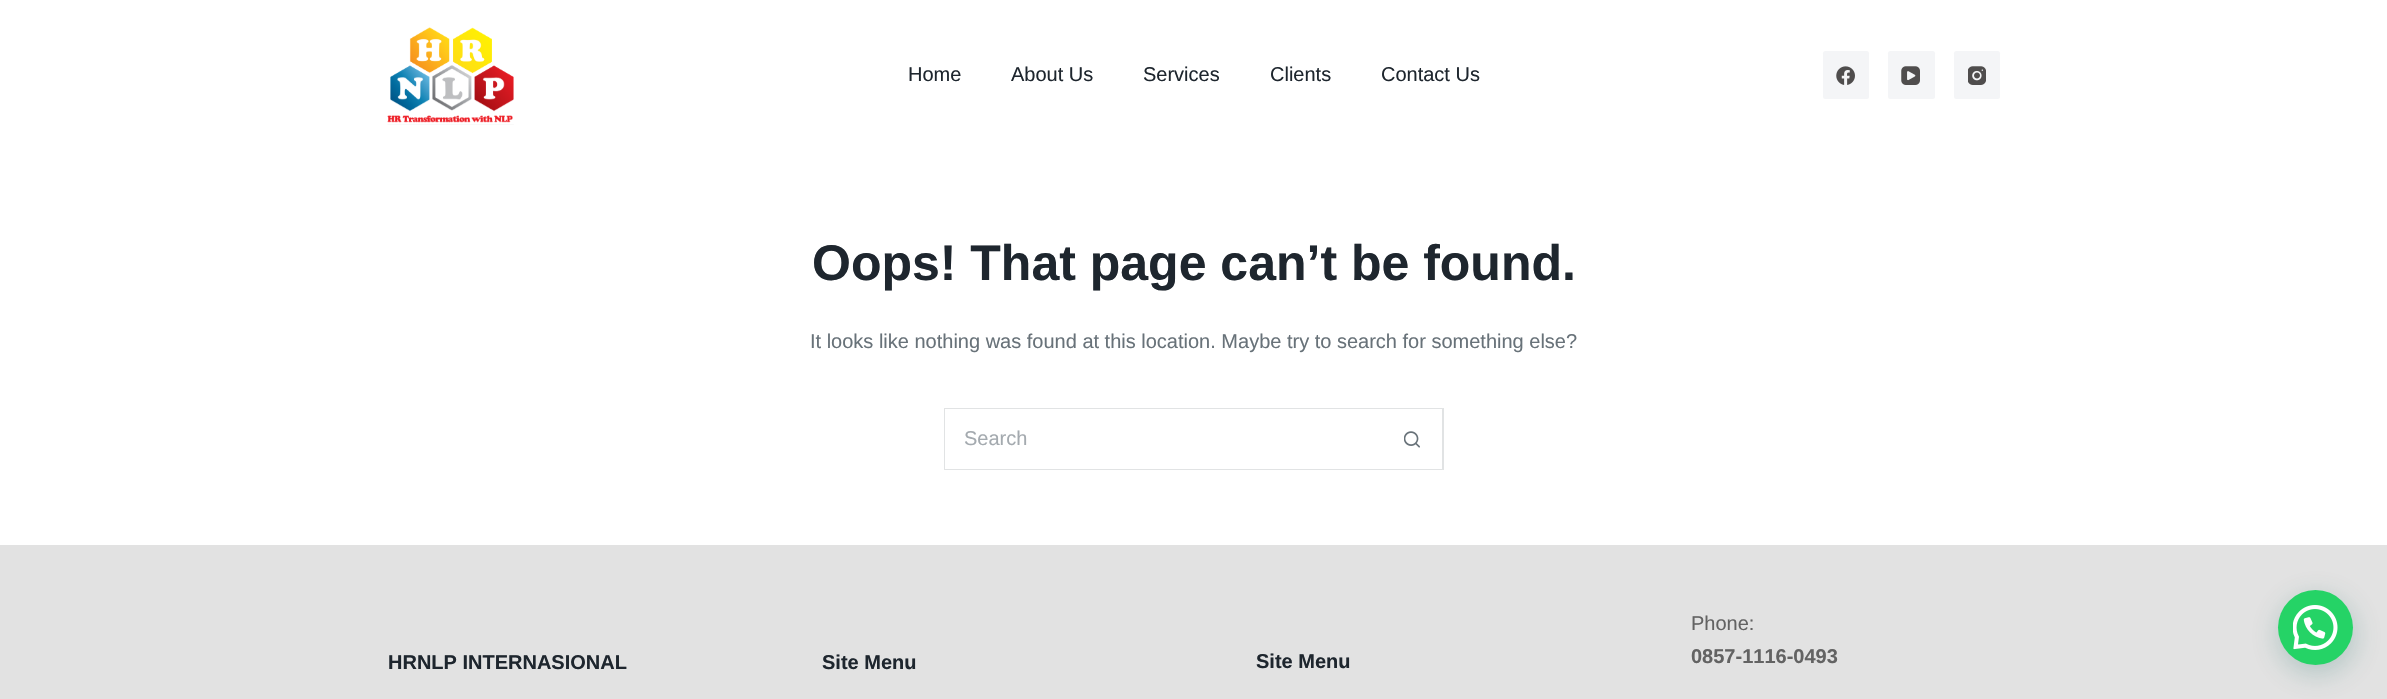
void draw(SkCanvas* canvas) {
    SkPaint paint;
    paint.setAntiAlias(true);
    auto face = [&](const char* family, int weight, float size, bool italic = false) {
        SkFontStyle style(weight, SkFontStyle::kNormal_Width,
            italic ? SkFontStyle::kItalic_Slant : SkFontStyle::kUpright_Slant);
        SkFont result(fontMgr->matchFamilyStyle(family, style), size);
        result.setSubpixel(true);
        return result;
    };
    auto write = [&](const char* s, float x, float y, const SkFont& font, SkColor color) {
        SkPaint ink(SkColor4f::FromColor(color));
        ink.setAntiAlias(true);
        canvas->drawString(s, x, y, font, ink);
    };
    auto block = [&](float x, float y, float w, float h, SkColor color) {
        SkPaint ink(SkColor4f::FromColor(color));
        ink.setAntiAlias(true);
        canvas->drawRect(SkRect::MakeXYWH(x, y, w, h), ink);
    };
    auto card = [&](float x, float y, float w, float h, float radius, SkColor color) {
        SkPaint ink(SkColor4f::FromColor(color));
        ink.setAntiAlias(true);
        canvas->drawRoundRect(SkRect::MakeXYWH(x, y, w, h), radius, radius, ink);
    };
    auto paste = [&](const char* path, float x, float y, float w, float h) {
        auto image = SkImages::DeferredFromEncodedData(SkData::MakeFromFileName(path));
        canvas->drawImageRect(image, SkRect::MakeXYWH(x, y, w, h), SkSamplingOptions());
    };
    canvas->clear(SK_ColorWHITE);
    paste("pic1.png", 387, 27, 127, 98);
    auto kFont1 = face("Liberation Sans", 400, 20);
    write("Home", 908, 81, kFont1, SkColorSetRGB(30, 38, 46));
    write("About Us", 1011, 81, kFont1, SkColorSetRGB(30, 38, 46));
    write("Services", 1143, 81, kFont1, SkColorSetRGB(30, 38, 46));
    write("Clients", 1270, 81, kFont1, SkColorSetRGB(30, 38, 46));
    write("Contact Us", 1381, 81, kFont1, SkColorSetRGB(30, 38, 46));
    card(1823, 51, 46, 48, 2.5f, SkColorSetRGB(244, 245, 247));
    paste("pic2.png", 1836, 66, 19, 19);
    card(1888, 51, 47, 48, 2.5f, SkColorSetRGB(244, 245, 247));
    paste("pic3.png", 1901, 66, 19, 19);
    card(1954, 51, 46, 48, 2.5f, SkColorSetRGB(244, 245, 247));
    paste("pic4.png", 1968, 66, 18, 19);
    auto kFont2 = face("Liberation Sans", 700, 50);
    write("Oops! That page can’t be found.", 812, 280, kFont2, SkColorSetRGB(30, 38, 46));
    write("It looks like nothing was found at this location. Maybe try to search for something else?", 810, 348, kFont1, SkColorSetRGB(104, 114, 121));
    paint.setColor(SkColorSetRGB(225, 227, 228));
    canvas->drawPath(SkPathBuilder().moveTo(944, 408).lineTo(1381, 408).lineTo(1381, 409).lineTo(945, 409).close().detach(), paint);
    canvas->drawPath(SkPathBuilder().moveTo(1381, 470).lineTo(944, 470).lineTo(945, 469).lineTo(1381, 469).close().detach(), paint);
    paint.setColor(SkColorSetARGB(51, 103, 113, 120));
    canvas->drawPath(SkPathBuilder().moveTo(944, 470).lineTo(944, 408).lineTo(945, 409).lineTo(945, 469).close().detach(), paint);
    write("Search", 964, 445, kFont1, SkColorSetRGB(164, 170, 175));
    paint.setColor(SkColorSetRGB(225, 227, 228));
    canvas->drawPath(SkPathBuilder().moveTo(1381, 408).lineTo(1444, 408).lineTo(1442, 409).lineTo(1381, 409).close().detach(), paint);
    paint.setColor(SkColorSetARGB(51, 103, 113, 120));
    canvas->drawPath(SkPathBuilder().moveTo(1444, 408).lineTo(1444, 470).lineTo(1442, 469).lineTo(1442, 409).close().detach(), paint);
    canvas->drawPath(SkPathBuilder().moveTo(1444, 470).lineTo(1381, 470).lineTo(1381, 469).lineTo(1442, 469).close().detach(), paint);
    paste("pic5.png", 1404, 431, 16, 17);
    block(0, 545, 2387, 154, SkColorSetRGB(226, 226, 226));
    auto kFont3 = face("Liberation Sans", 700, 20);
    write("HRNLP INTERNASIONAL", 388, 669, kFont3, SkColorSetRGB(30, 38, 46));
    write("Site Menu", 822, 669, kFont3, SkColorSetRGB(30, 38, 46));
    write("Site Menu", 1256, 668, kFont3, SkColorSetRGB(30, 38, 46));
    write("Phone:", 1691, 630, kFont1, SkColorSetRGB(99, 99, 99));
    write("0857-1116-0493", 1691, 663, kFont3, SkColorSetRGB(99, 99, 99));
    paint.setColor(SkColorSetARGB(61, 7, 94, 84));
    paint.setMaskFilter(SkMaskFilter::MakeBlur(kNormal_SkBlurStyle, 15));
    canvas->drawRoundRect(SkRect::MakeXYWH(2279, 598, 75, 75), 37.5f, 37.5f, paint);
    paint.setMaskFilter(nullptr);
    paint.setColor(SkColorSetRGB(37, 211, 102));
    canvas->drawCircle(2315.5f, 627.5f, 37.5f, paint);
    paste("pic6.png", 2293, 605, 45, 45);
}
